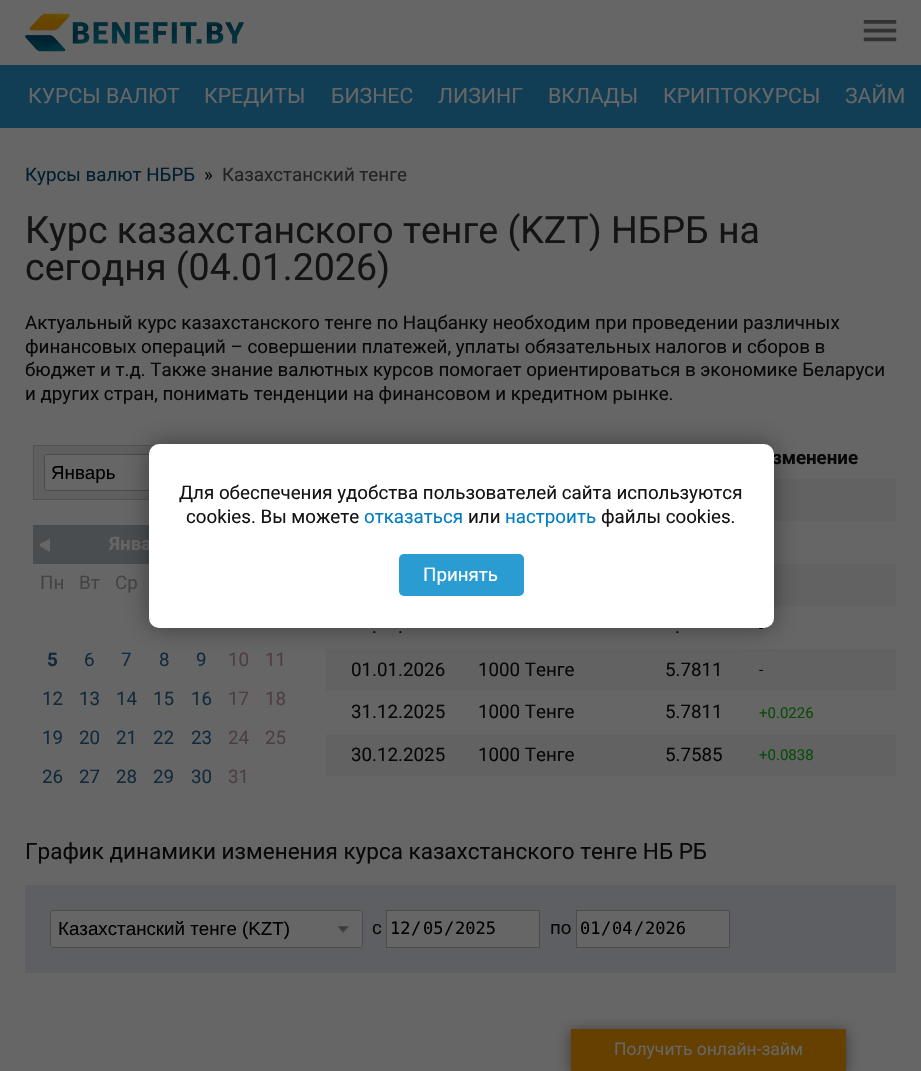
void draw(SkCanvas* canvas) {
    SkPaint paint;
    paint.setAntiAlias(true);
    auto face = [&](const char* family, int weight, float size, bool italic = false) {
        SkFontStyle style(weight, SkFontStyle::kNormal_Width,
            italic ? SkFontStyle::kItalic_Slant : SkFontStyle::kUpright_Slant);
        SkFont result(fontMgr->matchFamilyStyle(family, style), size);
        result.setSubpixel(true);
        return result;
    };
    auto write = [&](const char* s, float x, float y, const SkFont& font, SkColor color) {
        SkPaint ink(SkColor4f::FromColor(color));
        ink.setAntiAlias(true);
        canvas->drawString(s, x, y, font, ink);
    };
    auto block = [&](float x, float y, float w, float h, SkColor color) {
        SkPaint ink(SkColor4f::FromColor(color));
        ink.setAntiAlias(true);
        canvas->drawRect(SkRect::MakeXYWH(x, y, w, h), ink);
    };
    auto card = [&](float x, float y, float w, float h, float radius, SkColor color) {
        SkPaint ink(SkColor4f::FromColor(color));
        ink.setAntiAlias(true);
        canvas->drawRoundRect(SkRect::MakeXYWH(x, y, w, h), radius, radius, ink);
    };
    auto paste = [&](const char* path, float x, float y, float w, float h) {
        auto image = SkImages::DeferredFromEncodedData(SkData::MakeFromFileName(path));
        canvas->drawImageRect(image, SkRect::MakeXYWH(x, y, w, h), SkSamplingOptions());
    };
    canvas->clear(SkColorSetRGB(102, 102, 102));
    paste("pic1.png", 25, 13, 219, 39);
    paste("pic2.png", 863, 20, 34, 22);
    block(0, 65, 921, 63, SkColorSetRGB(17, 62, 84));
    auto kFont1 = face("Roboto", 400, 21.25f);
    write("КУРСЫ ВАЛЮТ", 28, 103, kFont1, SkColorSetRGB(102, 102, 102));
    write("КРЕДИТЫ", 204, 103, kFont1, SkColorSetRGB(102, 102, 102));
    write("БИЗНЕС", 331, 103, kFont1, SkColorSetRGB(102, 102, 102));
    write("ЛИЗИНГ", 438, 103, kFont1, SkColorSetRGB(102, 102, 102));
    write("ВКЛАДЫ", 548, 103, kFont1, SkColorSetRGB(102, 102, 102));
    write("КРИПТОКУРСЫ", 663, 103, kFont1, SkColorSetRGB(102, 102, 102));
    write("ЗАЙМ", 845, 103, kFont1, SkColorSetRGB(102, 102, 102));
    auto kFont2 = face("Roboto", 400, 18.75f);
    write("Курсы валют НБРБ", 25, 181, kFont2, SkColorSetRGB(0, 30, 48));
    write("»", 204, 181, kFont2, SkColorSetRGB(8, 8, 8));
    write("Казахстанский тенге", 222, 181, kFont2, SkColorSetRGB(34, 34, 34));
    auto kFont3 = face("Roboto", 400, 37.5f);
    write("Курс казахстанского тенге (KZT) НБРБ на", 25, 243, kFont3, SkColorSetRGB(20, 20, 20));
    write("сегодня (04.01.2026)", 25, 280, kFont3, SkColorSetRGB(20, 20, 20));
    write("Актуальный курс казахстанского тенге по Нацбанку необходим при проведении различных", 25, 329, kFont2, SkColorSetRGB(8, 8, 8));
    write("финансовых операций – совершении платежей, уплаты обязательных налогов и сборов в", 25, 353, kFont2, SkColorSetRGB(8, 8, 8));
    write("бюджет и т.д. Также знание валютных курсов помогает ориентироваться в экономике Беларуси", 25, 376, kFont2, SkColorSetRGB(8, 8, 8));
    write("и других стран, понимать тенденции на финансовом и кредитном рынке.", 25, 400, kFont2, SkColorSetRGB(8, 8, 8));
    block(34, 446, 119, 53, SkColorSetRGB(95, 95, 95));
    paint.setStyle(SkPaint::kStroke_Style);
    paint.setStrokeWidth(1);
    paint.setColor(SkColorSetRGB(82, 82, 82));
    canvas->drawRect(SkRect::MakeXYWH(33.5f, 445.5f, 260, 54), paint);
    paint.setStyle(SkPaint::kFill_Style);
    paint.setColor(SkColorSetRGB(102, 102, 102));
    canvas->drawRoundRect(SkRect::MakeXYWH(44.5f, 454.5f, 134, 36), 2, 2, paint);
    paint.setStyle(SkPaint::kStroke_Style);
    paint.setColor(SkColorSetRGB(75, 75, 75));
    canvas->drawRoundRect(SkRect::MakeXYWH(44.5f, 454.5f, 134, 36), 2, 2, paint);
    auto kFont4 = face("Liberation Sans", 400, 18.75f);
    write("Январь", 51, 479, kFont4, SK_ColorBLACK);
    block(33, 525, 116, 39, SkColorSetRGB(73, 77, 80));
    paste("pic3.png", 40, 538, 10, 14);
    auto kFont5 = face("Roboto", 700, 18.75f);
    write("Янва", 109, 550, kFont5, SkColorSetRGB(102, 102, 102));
    write("Пн", 40, 589, kFont2, SkColorSetRGB(68, 68, 68));
    write("Вт", 79, 589, kFont2, SkColorSetRGB(68, 68, 68));
    write("Ср", 115, 589, kFont2, SkColorSetRGB(68, 68, 68));
    write("5", 47, 666, kFont5, SkColorSetRGB(18, 42, 59));
    write("6", 84, 666, kFont2, SkColorSetRGB(18, 42, 59));
    write("7", 121, 666, kFont2, SkColorSetRGB(18, 42, 59));
    write("8", 159, 666, kFont2, SkColorSetRGB(18, 42, 59));
    write("9", 196, 666, kFont2, SkColorSetRGB(18, 42, 59));
    write("10", 228, 666, kFont2, SkColorSetRGB(76, 63, 64));
    write("11", 265, 666, kFont2, SkColorSetRGB(76, 63, 64));
    write("12", 42, 705, kFont2, SkColorSetRGB(18, 42, 59));
    write("13", 79, 705, kFont2, SkColorSetRGB(18, 42, 59));
    write("14", 116, 705, kFont2, SkColorSetRGB(18, 42, 59));
    write("15", 153, 705, kFont2, SkColorSetRGB(18, 42, 59));
    write("16", 191, 705, kFont2, SkColorSetRGB(18, 42, 59));
    write("17", 228, 705, kFont2, SkColorSetRGB(76, 63, 64));
    write("18", 265, 705, kFont2, SkColorSetRGB(76, 63, 64));
    write("19", 42, 744, kFont2, SkColorSetRGB(18, 42, 59));
    write("20", 79, 744, kFont2, SkColorSetRGB(18, 42, 59));
    write("21", 116, 744, kFont2, SkColorSetRGB(18, 42, 59));
    write("22", 153, 744, kFont2, SkColorSetRGB(18, 42, 59));
    write("23", 191, 744, kFont2, SkColorSetRGB(18, 42, 59));
    write("24", 228, 744, kFont2, SkColorSetRGB(76, 63, 64));
    write("25", 265, 744, kFont2, SkColorSetRGB(76, 63, 64));
    write("26", 42, 783, kFont2, SkColorSetRGB(18, 42, 59));
    write("27", 79, 783, kFont2, SkColorSetRGB(18, 42, 59));
    write("28", 116, 783, kFont2, SkColorSetRGB(18, 42, 59));
    write("29", 153, 783, kFont2, SkColorSetRGB(18, 42, 59));
    write("30", 191, 783, kFont2, SkColorSetRGB(18, 42, 59));
    write("31", 228, 783, kFont2, SkColorSetRGB(76, 63, 64));
    write("зменение", 772, 464, kFont5, SkColorSetRGB(8, 8, 8));
    block(774, 479, 122, 42, SkColorSetRGB(98, 98, 98));
    block(774, 564, 122, 42, SkColorSetRGB(98, 98, 98));
    auto kFont6 = face("Roboto", 400, 15);
    write("-", 759, 633, kFont6, SkColorSetRGB(8, 8, 8));
    write(".", 372, 633, kFont2, SkColorSetRGB(8, 8, 8));
    write(".", 398, 633, kFont2, SkColorSetRGB(8, 8, 8));
    write(".", 675, 633, kFont2, SkColorSetRGB(8, 8, 8));
    block(326, 649, 570, 42, SkColorSetRGB(98, 98, 98));
    write("01.01.2026", 351, 676, kFont2, SkColorSetRGB(8, 8, 8));
    write("1000 Тенге", 478, 676, kFont2, SkColorSetRGB(8, 8, 8));
    write("5.7811", 665, 676, kFont2, SkColorSetRGB(8, 8, 8));
    write("-", 759, 675, kFont6, SkColorSetRGB(8, 8, 8));
    write("31.12.2025", 351, 718, kFont2, SkColorSetRGB(8, 8, 8));
    write("1000 Тенге", 478, 718, kFont2, SkColorSetRGB(8, 8, 8));
    write("5.7811", 665, 718, kFont2, SkColorSetRGB(8, 8, 8));
    write("+0.0226", 759, 718, kFont6, SkColorSetRGB(7, 77, 7));
    block(326, 734, 570, 42, SkColorSetRGB(98, 98, 98));
    write("30.12.2025", 351, 761, kFont2, SkColorSetRGB(8, 8, 8));
    write("1000 Тенге", 478, 761, kFont2, SkColorSetRGB(8, 8, 8));
    write("5.7585", 665, 761, kFont2, SkColorSetRGB(8, 8, 8));
    write("+0.0838", 759, 760, kFont6, SkColorSetRGB(7, 77, 7));
    auto kFont7 = face("Roboto", 400, 22.5f);
    write("График динамики изменения курса казахстанского тенге НБ РБ", 25, 859, kFont7, SkColorSetRGB(8, 8, 8));
    block(25, 885, 871, 88, SkColorSetRGB(94, 95, 98));
    card(50, 910, 313, 38, 2.5f, SkColorSetRGB(102, 102, 102));
    paste("pic4.png", 337, 926, 12, 7);
    canvas->drawRoundRect(SkRect::MakeXYWH(50.5f, 910.5f, 312, 37), 2, 2, paint);
    write("Казахстанский тенге (KZT)", 58, 935, kFont4, SK_ColorBLACK);
    write("с", 372, 934, kFont2, SkColorSetRGB(8, 8, 8));
    paint.setStyle(SkPaint::kFill_Style);
    paint.setColor(SkColorSetRGB(102, 102, 102));
    canvas->drawRect(SkRect::MakeXYWH(386.5f, 910.5f, 153, 37), paint);
    paint.setStyle(SkPaint::kStroke_Style);
    paint.setColor(SkColorSetRGB(75, 75, 75));
    canvas->drawRect(SkRect::MakeXYWH(386.5f, 910.5f, 153, 37), paint);
    auto kFont8 = face("DejaVu Sans Mono", 400, 17);
    write("12", 390, 934, kFont8, SK_ColorBLACK);
    write("/", 411, 934, kFont8, SK_ColorBLACK);
    write("05", 423, 934, kFont8, SK_ColorBLACK);
    write("/", 444, 934, kFont8, SK_ColorBLACK);
    write("2025", 455, 934, kFont8, SK_ColorBLACK);
    write("по", 550, 934, kFont2, SkColorSetRGB(8, 8, 8));
    paint.setStyle(SkPaint::kFill_Style);
    paint.setColor(SkColorSetRGB(102, 102, 102));
    canvas->drawRect(SkRect::MakeXYWH(576.5f, 910.5f, 153, 37), paint);
    paint.setStyle(SkPaint::kStroke_Style);
    paint.setColor(SkColorSetRGB(75, 75, 75));
    canvas->drawRect(SkRect::MakeXYWH(576.5f, 910.5f, 153, 37), paint);
    write("01", 580, 934, kFont8, SK_ColorBLACK);
    write("/", 601, 934, kFont8, SK_ColorBLACK);
    write("04", 612, 934, kFont8, SK_ColorBLACK);
    write("/", 634, 934, kFont8, SK_ColorBLACK);
    write("2026", 645, 934, kFont8, SK_ColorBLACK);
    paint.setStyle(SkPaint::kFill_Style);
    paint.setColor(SkColorSetARGB(102, 0, 0, 0));
    paint.setMaskFilter(SkMaskFilter::MakeBlur(kNormal_SkBlurStyle, 12.5f));
    canvas->drawRoundRect(SkRect::MakeXYWH(149, 444, 625, 184), 10, 10, paint);
    paint.setMaskFilter(nullptr);
    card(149, 444, 625, 184, 10, SK_ColorWHITE);
    write("Для обеспечения удобства пользователей сайта используются", 179, 499, kFont2, SkColorSetRGB(20, 20, 20));
    write("cookies. Вы можете", 186, 523, kFont2, SkColorSetRGB(20, 20, 20));
    write("отказаться", 364, 523, kFont2, SkColorSetRGB(0, 125, 195));
    write("или", 468, 523, kFont2, SkColorSetRGB(20, 20, 20));
    write("настроить", 505, 523, kFont2, SkColorSetRGB(0, 125, 195));
    write("файлы cookies.", 601, 523, kFont2, SkColorSetRGB(20, 20, 20));
    card(399, 554, 125, 42, 5, SkColorSetRGB(43, 156, 209));
    write("Принять", 423, 581, kFont2, SK_ColorWHITE);
    paint.setColor(SkColorSetARGB(115, 0, 0, 0));
    paint.setMaskFilter(SkMaskFilter::MakeBlur(kNormal_SkBlurStyle, 7));
    canvas->drawRect(SkRect::MakeXYWH(571, 1031, 275, 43), paint);
    paint.setMaskFilter(nullptr);
    block(571, 1029, 275, 42, SkColorSetRGB(102, 64, 0));
    auto kFont9 = face("Roboto", 400, 17.5f);
    write("Получить онлайн-займ", 614, 1055, kFont9, SkColorSetRGB(102, 102, 102));
}
